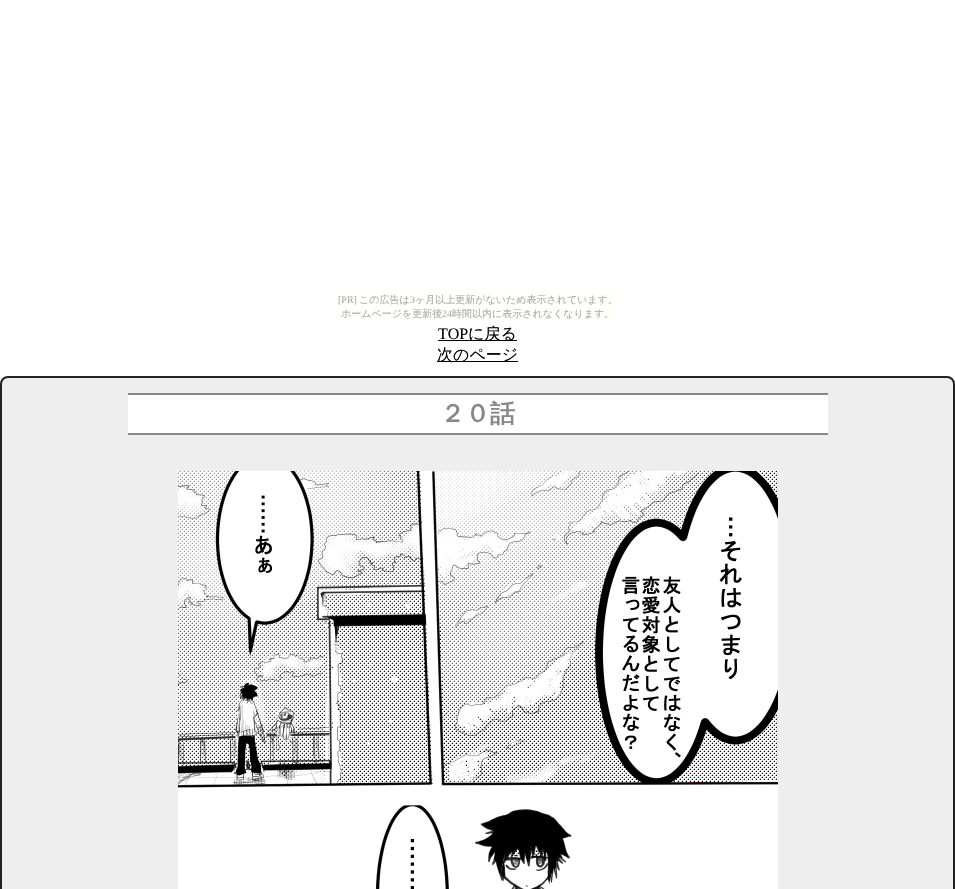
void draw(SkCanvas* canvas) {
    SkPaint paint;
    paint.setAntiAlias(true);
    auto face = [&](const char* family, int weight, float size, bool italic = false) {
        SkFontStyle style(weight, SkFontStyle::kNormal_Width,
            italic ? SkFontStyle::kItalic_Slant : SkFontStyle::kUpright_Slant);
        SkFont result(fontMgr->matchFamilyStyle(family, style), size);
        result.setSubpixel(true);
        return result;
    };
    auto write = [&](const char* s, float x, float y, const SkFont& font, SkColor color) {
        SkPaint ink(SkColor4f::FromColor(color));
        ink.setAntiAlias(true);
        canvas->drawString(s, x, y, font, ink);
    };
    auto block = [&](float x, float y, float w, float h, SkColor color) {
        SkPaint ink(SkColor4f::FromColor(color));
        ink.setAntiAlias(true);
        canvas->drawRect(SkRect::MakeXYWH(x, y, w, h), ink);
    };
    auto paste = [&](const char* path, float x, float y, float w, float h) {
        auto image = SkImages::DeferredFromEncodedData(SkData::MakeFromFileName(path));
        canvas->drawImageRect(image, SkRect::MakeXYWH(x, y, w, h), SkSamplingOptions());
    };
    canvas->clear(SK_ColorWHITE);
    block(335, 290, 285, 34, SkColorSetRGB(255, 255, 252));
    auto kFont1 = face("Liberation Serif", 400, 10);
    write("[PR]", 338, 303, kFont1, SkColorSetRGB(170, 170, 170));
    auto kFont2 = face("WenQuanYi Zen Hei", 500, 10);
    write("この広告は", 359, 303, kFont2, SkColorSetRGB(170, 170, 170));
    write("3", 410, 303, kFont1, SkColorSetRGB(170, 170, 170));
    write("ヶ月以上更新がないため表示されています。", 415, 303, kFont2, SkColorSetRGB(170, 170, 170));
    write("ホームページを更新後", 341, 317, kFont2, SkColorSetRGB(170, 170, 170));
    write("24", 442, 317, kFont1, SkColorSetRGB(170, 170, 170));
    write("時間以内に表示されなくなります。", 452, 317, kFont2, SkColorSetRGB(170, 170, 170));
    auto kFont3 = face("Liberation Serif", 400, 16);
    write("TOP", 438, 339, kFont3, SK_ColorBLACK);
    block(438, 340, 79, 1, SK_ColorBLACK);
    auto kFont4 = face("WenQuanYi Zen Hei", 500, 16);
    write("に戻る", 468, 339, kFont4, SK_ColorBLACK);
    block(437, 361, 81, 1, SK_ColorBLACK);
    write("次のページ", 437, 360, kFont4, SK_ColorBLACK);
    paint.setColor(SkColorSetRGB(238, 238, 238));
    canvas->drawRoundRect(SkRect::MakeXYWH(1, 377, 953, 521), 7, 7, paint);
    paint.setStyle(SkPaint::kStroke_Style);
    paint.setStrokeWidth(2);
    paint.setColor(SkColorSetRGB(34, 34, 34));
    canvas->drawRoundRect(SkRect::MakeXYWH(1, 377, 953, 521), 7, 7, paint);
    block(128, 395, 700, 38, SK_ColorWHITE);
    block(128, 393, 700, 2, SkColorSetRGB(136, 136, 136));
    block(128, 433, 700, 2, SkColorSetRGB(136, 136, 136));
    auto kFont5 = face("WenQuanYi Zen Hei", 700, 25);
    write("２０話", 440, 422, kFont5, SkColorSetRGB(136, 136, 136));
    paste("pic1.png", 178, 471, 600, 418);
}
